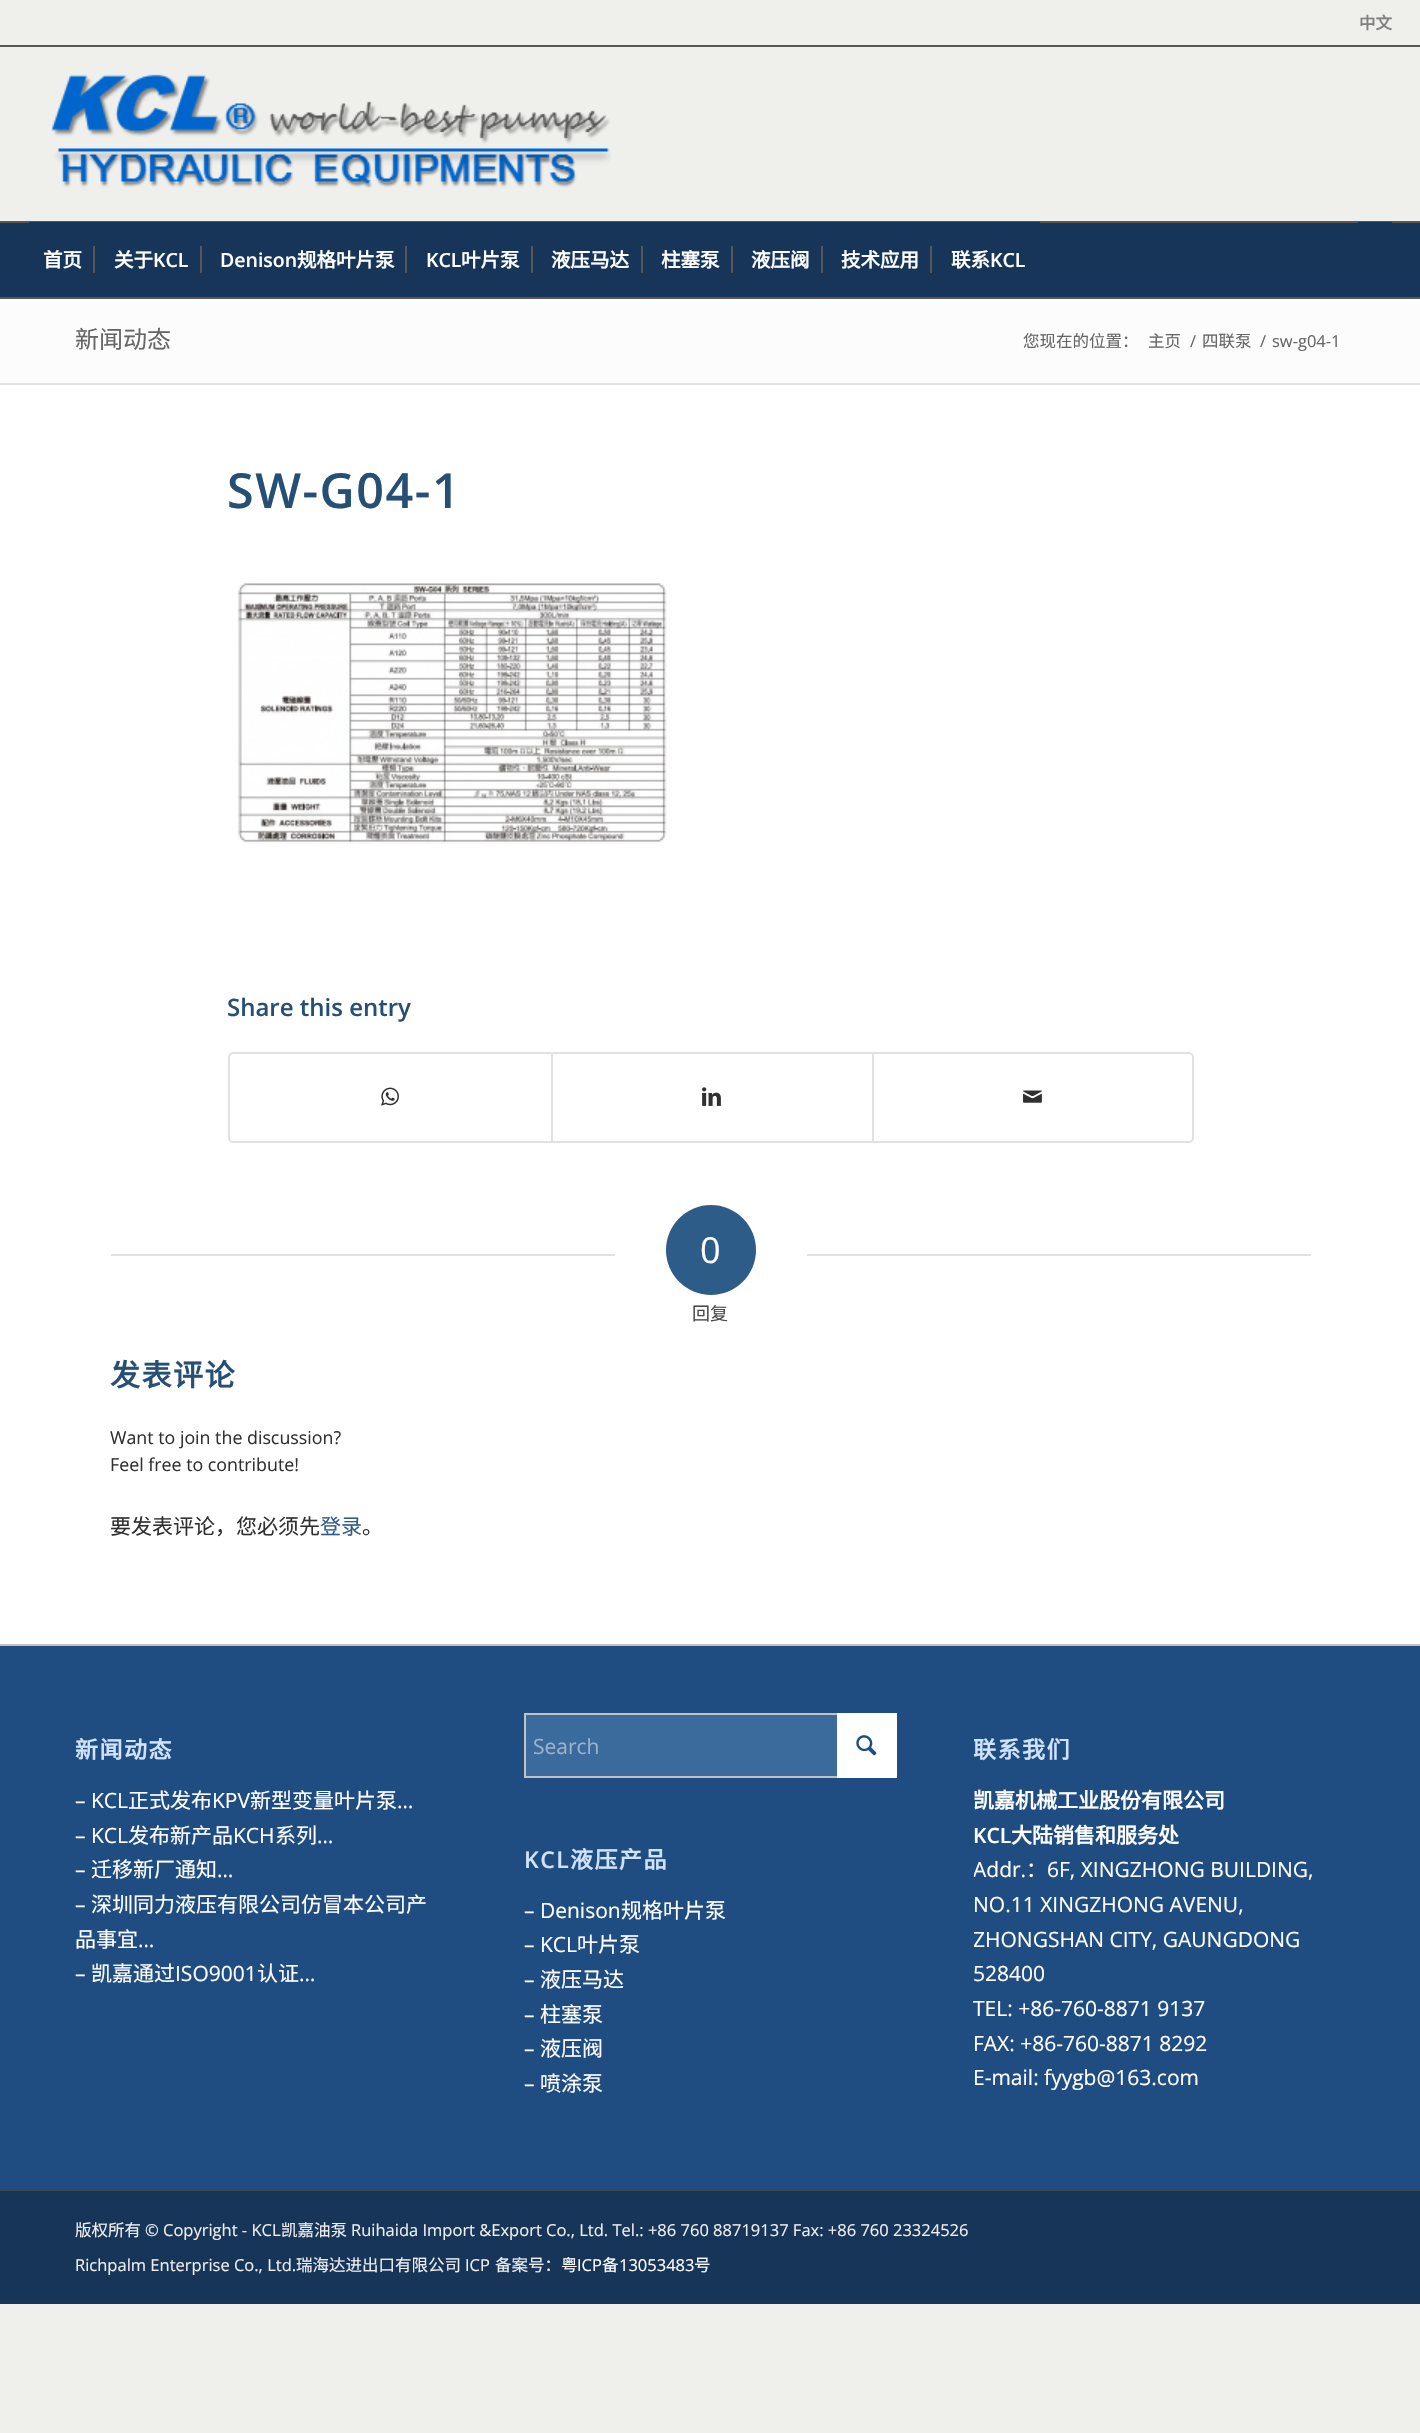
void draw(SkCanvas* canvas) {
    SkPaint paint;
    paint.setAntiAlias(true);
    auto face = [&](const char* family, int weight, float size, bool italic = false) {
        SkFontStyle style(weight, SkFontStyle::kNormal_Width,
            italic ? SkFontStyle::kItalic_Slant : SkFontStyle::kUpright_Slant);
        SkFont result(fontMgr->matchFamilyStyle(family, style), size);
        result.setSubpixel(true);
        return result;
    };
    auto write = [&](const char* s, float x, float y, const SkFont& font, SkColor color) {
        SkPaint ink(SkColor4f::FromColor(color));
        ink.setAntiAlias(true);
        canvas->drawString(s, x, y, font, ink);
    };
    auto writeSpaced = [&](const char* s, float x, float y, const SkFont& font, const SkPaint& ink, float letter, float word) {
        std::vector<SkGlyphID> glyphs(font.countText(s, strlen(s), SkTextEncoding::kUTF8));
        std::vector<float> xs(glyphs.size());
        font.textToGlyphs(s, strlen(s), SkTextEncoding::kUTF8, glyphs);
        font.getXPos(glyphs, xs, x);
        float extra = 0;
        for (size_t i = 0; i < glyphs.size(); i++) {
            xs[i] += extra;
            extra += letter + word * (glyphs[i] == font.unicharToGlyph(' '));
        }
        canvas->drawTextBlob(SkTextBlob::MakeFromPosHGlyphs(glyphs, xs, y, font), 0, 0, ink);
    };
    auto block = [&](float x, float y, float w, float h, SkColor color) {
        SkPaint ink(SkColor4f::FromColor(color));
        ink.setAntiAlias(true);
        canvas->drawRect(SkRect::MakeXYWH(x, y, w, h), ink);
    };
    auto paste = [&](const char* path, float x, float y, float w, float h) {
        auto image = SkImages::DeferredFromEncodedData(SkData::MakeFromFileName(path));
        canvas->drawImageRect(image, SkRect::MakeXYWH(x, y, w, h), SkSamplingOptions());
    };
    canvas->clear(SkColorSetRGB(239, 240, 236));
    block(0, 45, 1420, 2, SkColorSetRGB(87, 87, 85));
    auto kFont1 = face("Noto Sans CJK SC", 700, 16.5f);
    write("中文", 1359, 29, kFont1, SkColorSetRGB(128, 128, 128));
    block(0, 297, 1420, 2, SkColorSetRGB(87, 87, 85));
    paste("pic1.png", 51, 74, 560, 114);
    block(0, 223, 1420, 74, SkColorSetRGB(22, 53, 88));
    block(0, 221, 1420, 2, SkColorSetRGB(87, 87, 85));
    block(1358, 222, 34, 1, SkColorSetRGB(22, 53, 88));
    block(29, 222, 1011, 1, SkColorSetRGB(22, 53, 88));
    auto kFont2 = face("Noto Sans CJK SC", 700, 19.5f);
    write("首页", 43, 267, kFont2, SK_ColorWHITE);
    write("关于", 114, 267, kFont2, SK_ColorWHITE);
    block(93, 246, 2, 27, SkColorSetRGB(87, 87, 85));
    auto kFont3 = face("Open Sans", 600, 19.5f);
    write("KCL", 153, 267, kFont3, SK_ColorWHITE);
    write("Denison", 220, 267, kFont3, SK_ColorWHITE);
    block(200, 246, 2, 27, SkColorSetRGB(87, 87, 85));
    write("规格叶片泵", 297, 267, kFont2, SK_ColorWHITE);
    write("KCL", 426, 267, kFont3, SK_ColorWHITE);
    block(405, 246, 2, 27, SkColorSetRGB(87, 87, 85));
    write("叶片泵", 461, 267, kFont2, SK_ColorWHITE);
    write("液压马达", 551, 267, kFont2, SK_ColorWHITE);
    block(531, 246, 2, 27, SkColorSetRGB(87, 87, 85));
    write("柱塞泵", 661, 267, kFont2, SK_ColorWHITE);
    block(641, 246, 2, 27, SkColorSetRGB(87, 87, 85));
    write("液压阀", 751, 267, kFont2, SK_ColorWHITE);
    block(731, 246, 2, 27, SkColorSetRGB(87, 87, 85));
    write("技术应用", 841, 267, kFont2, SK_ColorWHITE);
    block(821, 246, 2, 27, SkColorSetRGB(87, 87, 85));
    write("联系", 951, 267, kFont2, SK_ColorWHITE);
    block(930, 246, 2, 27, SkColorSetRGB(87, 87, 85));
    write("KCL", 990, 267, kFont3, SK_ColorWHITE);
    block(0, 299, 1420, 84, SkColorSetRGB(252, 252, 252));
    auto kFont4 = face("Noto Sans CJK SC", 400, 24);
    write("新闻动态", 75, 348, kFont4, SkColorSetRGB(102, 102, 102));
    auto kFont5 = face("Noto Sans CJK SC", 400, 16.5f);
    write("您现在的位置：", 1023, 347, kFont5, SkColorSetRGB(102, 102, 102));
    write("主页", 1148, 347, kFont5, SkColorSetRGB(102, 102, 102));
    auto kFont6 = face("Open Sans", 400, 16.5f);
    write("/", 1190, 347, kFont6, SkColorSetRGB(102, 102, 102));
    write("四联泵", 1202, 347, kFont5, SkColorSetRGB(102, 102, 102));
    write("/", 1260, 347, kFont6, SkColorSetRGB(102, 102, 102));
    write("sw-g04-1", 1272, 347, kFont6, SkColorSetRGB(102, 102, 102));
    block(0, 385, 1420, 1259, SK_ColorWHITE);
    block(0, 383, 1420, 2, SkColorSetRGB(225, 225, 225));
    auto kFont7 = face("Open Sans", 600, 48.5f);
    paint.setColor(SkColorSetRGB(38, 79, 117));
    writeSpaced("SW-G04-1", 227, 508, kFont7, paint, 1.5f, 0);
    paste("pic2.png", 237, 582, 430, 262);
    auto kFont8 = face("Open Sans", 600, 24);
    write("Share this entry", 227, 1016, kFont8, SkColorSetRGB(38, 79, 117));
    paint.setStyle(SkPaint::kStroke_Style);
    paint.setStrokeWidth(2);
    paint.setColor(SkColorSetRGB(225, 225, 225));
    canvas->drawRoundRect(SkRect::MakeXYWH(229, 1053, 964, 89), 4, 4, paint);
    paste("pic3.png", 381, 1087, 18, 19);
    block(551, 1053, 2, 89, SkColorSetRGB(225, 225, 225));
    paste("pic4.png", 702, 1087, 19, 19);
    block(872, 1053, 2, 89, SkColorSetRGB(225, 225, 225));
    paste("pic5.png", 1023, 1090, 19, 13);
    block(111, 1254, 504, 2, SkColorSetRGB(225, 225, 225));
    paint.setStyle(SkPaint::kFill_Style);
    paint.setColor(SkColorSetRGB(45, 92, 136));
    canvas->drawCircle(711, 1250, 45, paint);
    auto kFont9 = face("Open Sans", 400, 36);
    write("0", 700, 1263, kFont9, SK_ColorWHITE);
    block(807, 1254, 504, 2, SkColorSetRGB(225, 225, 225));
    auto kFont10 = face("Noto Sans CJK SC", 400, 18);
    write("回复", 692, 1320, kFont10, SkColorSetRGB(74, 74, 74));
    auto kFont11 = face("Noto Sans CJK SC", 700, 30);
    paint.setColor(SkColorSetRGB(38, 79, 117));
    writeSpaced("发表评论", 110, 1386, kFont11, paint, 1.5f, 0);
    auto kFont12 = face("Open Sans", 400, 17.8f);
    write("Want to join the discussion?", 110, 1444, kFont12, SkColorSetRGB(48, 48, 48));
    write("Feel free to contribute!", 110, 1471, kFont12, SkColorSetRGB(48, 48, 48));
    auto kFont13 = face("Noto Sans CJK SC", 400, 21);
    write("要发表评论，您必须先", 110, 1534, kFont13, SkColorSetRGB(48, 48, 48));
    write("登录", 320, 1534, kFont13, SkColorSetRGB(45, 92, 136));
    write("。", 362, 1534, kFont13, SkColorSetRGB(48, 48, 48));
    block(0, 1646, 1420, 543, SkColorSetRGB(32, 77, 129));
    block(0, 1644, 1420, 2, SkColorSetRGB(194, 194, 194));
    auto kFont14 = face("Noto Sans CJK SC", 700, 23);
    paint.setColor(SkColorSetRGB(207, 228, 252));
    writeSpaced("新闻动态", 75, 1758, kFont14, paint, 1.5f, 0);
    auto kFont15 = face("Open Sans", 400, 21);
    write("– KCL", 75, 1808, kFont15, SK_ColorWHITE);
    write("正式发布", 128, 1808, kFont13, SK_ColorWHITE);
    write("KPV", 212, 1808, kFont15, SK_ColorWHITE);
    write("新型变量叶片泵", 250, 1808, kFont13, SK_ColorWHITE);
    write("…", 397, 1808, kFont15, SK_ColorWHITE);
    write("– KCL", 75, 1843, kFont15, SK_ColorWHITE);
    write("发布新产品", 128, 1843, kFont13, SK_ColorWHITE);
    write("KCH", 233, 1843, kFont15, SK_ColorWHITE);
    write("系列", 275, 1843, kFont13, SK_ColorWHITE);
    write("…", 317, 1843, kFont15, SK_ColorWHITE);
    write("–", 75, 1877, kFont15, SK_ColorWHITE);
    write("迁移新厂通知", 91, 1877, kFont13, SK_ColorWHITE);
    write("…", 217, 1877, kFont15, SK_ColorWHITE);
    write("–", 75, 1912, kFont15, SK_ColorWHITE);
    write("深圳同力液压有限公司仿冒本公司产", 91, 1912, kFont13, SK_ColorWHITE);
    write("品事宜", 75, 1947, kFont13, SK_ColorWHITE);
    write("…", 138, 1947, kFont15, SK_ColorWHITE);
    write("–", 75, 1981, kFont15, SK_ColorWHITE);
    write("凯嘉通过", 91, 1981, kFont13, SK_ColorWHITE);
    write("ISO9001", 175, 1981, kFont15, SK_ColorWHITE);
    write("认证", 257, 1981, kFont13, SK_ColorWHITE);
    write("…", 299, 1981, kFont15, SK_ColorWHITE);
    block(526, 1715, 311, 61, SkColorSetRGB(59, 106, 156));
    paint.setStyle(SkPaint::kStroke_Style);
    paint.setColor(SkColorSetRGB(194, 194, 194));
    canvas->drawRect(SkRect::MakeXYWH(525, 1714, 371, 63), paint);
    block(837, 1713, 60, 65, SK_ColorWHITE);
    write("Search", 533, 1754, kFont15, SkColorSetRGB(156, 179, 204));
    paste("pic6.png", 856, 1735, 21, 21);
    auto kFont16 = face("Open Sans", 600, 23);
    paint.setStyle(SkPaint::kFill_Style);
    paint.setColor(SkColorSetRGB(207, 228, 252));
    writeSpaced("KCL", 524, 1868, kFont16, paint, 1.5f, 0);
    writeSpaced("液压产品", 570, 1868, kFont14, paint, 1.5f, 0);
    write("– Denison", 524, 1918, kFont15, SK_ColorWHITE);
    write("规格叶片泵", 621, 1918, kFont13, SK_ColorWHITE);
    write("– KCL", 524, 1952, kFont15, SK_ColorWHITE);
    write("叶片泵", 577, 1952, kFont13, SK_ColorWHITE);
    write("–", 524, 1987, kFont15, SK_ColorWHITE);
    write("液压马达", 540, 1987, kFont13, SK_ColorWHITE);
    write("–", 524, 2022, kFont15, SK_ColorWHITE);
    write("柱塞泵", 540, 2022, kFont13, SK_ColorWHITE);
    write("–", 524, 2056, kFont15, SK_ColorWHITE);
    write("液压阀", 540, 2056, kFont13, SK_ColorWHITE);
    write("–", 524, 2091, kFont15, SK_ColorWHITE);
    write("喷涂泵", 540, 2091, kFont13, SK_ColorWHITE);
    writeSpaced("联系我们", 973, 1758, kFont14, paint, 1.5f, 0);
    auto kFont17 = face("Noto Sans CJK SC", 700, 21);
    write("凯嘉机械工业股份有限公司", 973, 1808, kFont17, SK_ColorWHITE);
    auto kFont18 = face("Open Sans", 600, 21);
    write("KCL", 973, 1843, kFont18, SK_ColorWHITE);
    write("大陆销售和服务处", 1011, 1843, kFont17, SK_ColorWHITE);
    canvas->save();
    canvas->clipRect(SkRect::MakeXYWH(974, 1713, 372, 381));
    write("Addr.", 973, 1877, kFont15, SK_ColorWHITE);
    canvas->restore();
    write("：", 1026, 1877, kFont13, SK_ColorWHITE);
    write("6F, XINGZHONG BUILDING,", 1047, 1877, kFont15, SK_ColorWHITE);
    write("NO.11 XINGZHONG AVENU,", 973, 1912, kFont15, SK_ColorWHITE);
    canvas->save();
    canvas->clipRect(SkRect::MakeXYWH(974, 1713, 372, 381));
    write("ZHONGSHAN CITY, GAUNGDONG", 973, 1947, kFont15, SK_ColorWHITE);
    canvas->restore();
    write("528400", 973, 1981, kFont15, SK_ColorWHITE);
    write("TEL: +86-760-8871 9137", 973, 2016, kFont15, SK_ColorWHITE);
    write("FAX: +86-760-8871 8292", 973, 2051, kFont15, SK_ColorWHITE);
    write("E-mail: fyygb@163.com", 973, 2085, kFont15, SK_ColorWHITE);
    block(0, 2191, 1420, 113, SkColorSetRGB(22, 53, 88));
    block(0, 2189, 1420, 2, SkColorSetRGB(68, 68, 68));
    write("版权所有", 75, 2236, kFont5, SkColorSetRGB(238, 238, 238));
    write("© Copyright - KCL", 145, 2236, kFont6, SkColorSetRGB(238, 238, 238));
    write("凯嘉油泵", 281, 2236, kFont5, SkColorSetRGB(238, 238, 238));
    write("Ruihaida Import &Export Co., Ltd. Tel.: +86 760 88719137 Fax: +86 760 23324526", 351, 2236, kFont6, SkColorSetRGB(238, 238, 238));
    write("Richpalm Enterprise Co., Ltd.", 75, 2271, kFont6, SkColorSetRGB(238, 238, 238));
    write("瑞海达进出口有限公司", 296, 2271, kFont5, SkColorSetRGB(238, 238, 238));
    write("ICP", 465, 2271, kFont6, SkColorSetRGB(238, 238, 238));
    write("备案号：", 495, 2271, kFont5, SkColorSetRGB(238, 238, 238));
    write("粤", 561, 2271, kFont5, SK_ColorWHITE);
    write("ICP", 577, 2271, kFont6, SK_ColorWHITE);
    write("备", 602, 2271, kFont5, SK_ColorWHITE);
    write("13053483", 619, 2271, kFont6, SK_ColorWHITE);
    write("号", 694, 2271, kFont5, SK_ColorWHITE);
}
